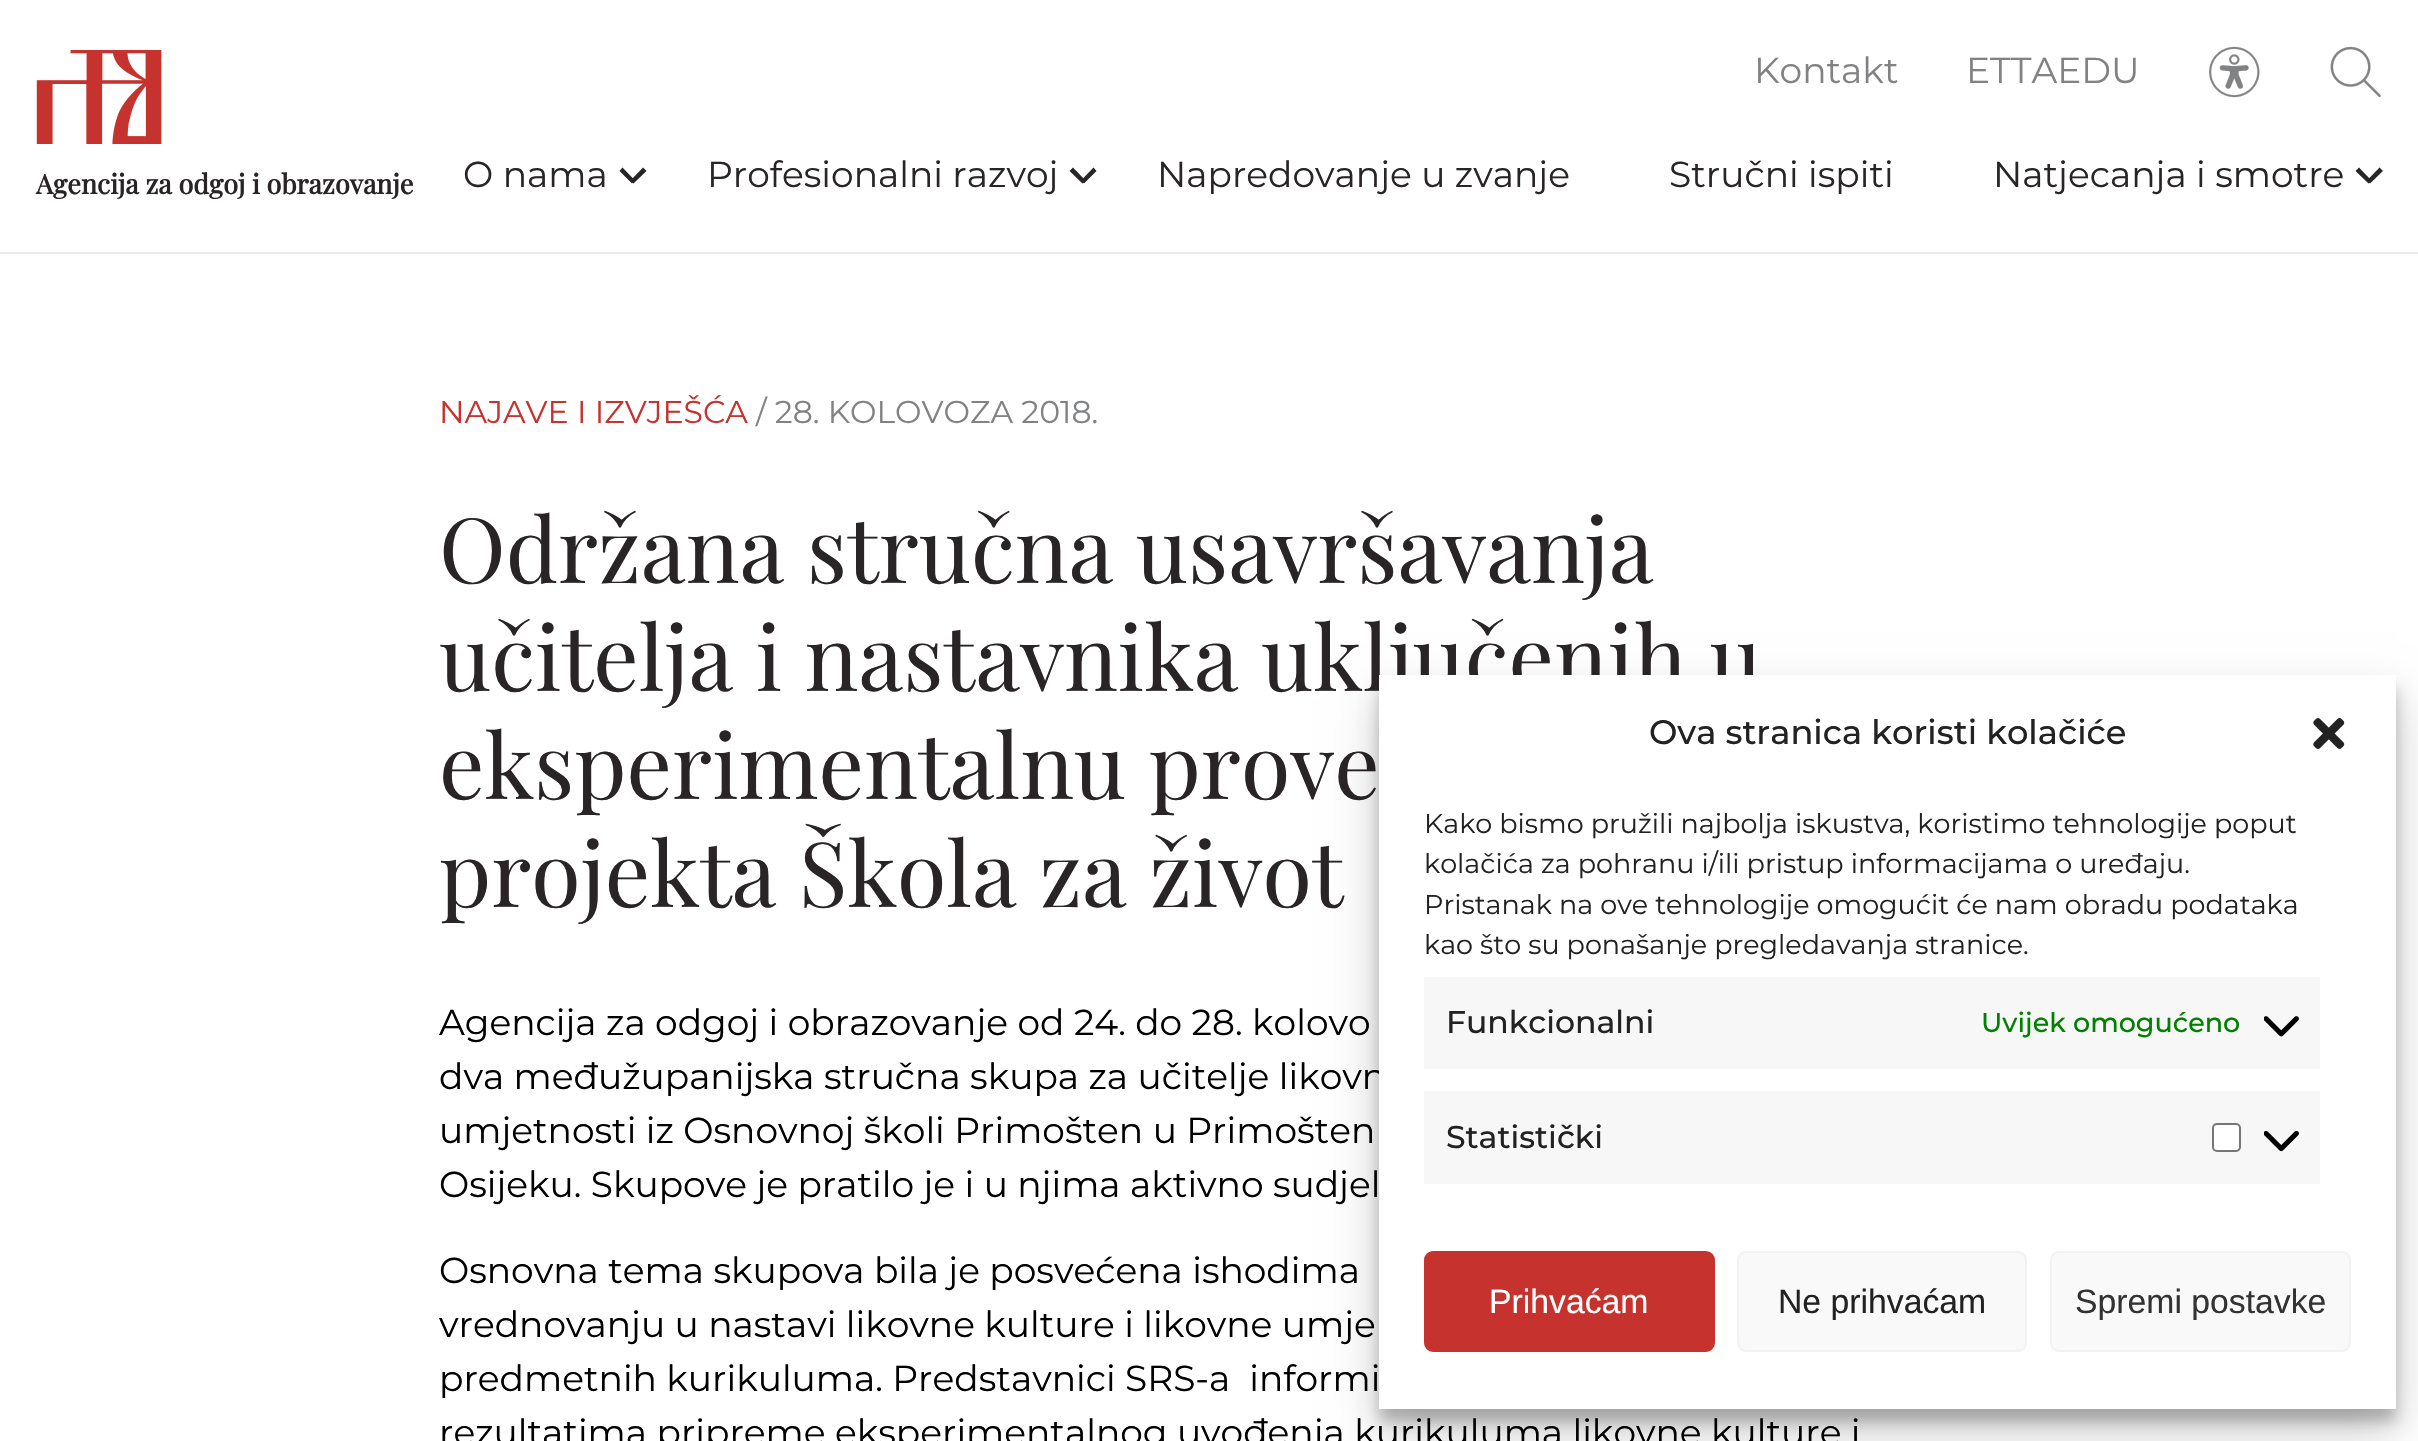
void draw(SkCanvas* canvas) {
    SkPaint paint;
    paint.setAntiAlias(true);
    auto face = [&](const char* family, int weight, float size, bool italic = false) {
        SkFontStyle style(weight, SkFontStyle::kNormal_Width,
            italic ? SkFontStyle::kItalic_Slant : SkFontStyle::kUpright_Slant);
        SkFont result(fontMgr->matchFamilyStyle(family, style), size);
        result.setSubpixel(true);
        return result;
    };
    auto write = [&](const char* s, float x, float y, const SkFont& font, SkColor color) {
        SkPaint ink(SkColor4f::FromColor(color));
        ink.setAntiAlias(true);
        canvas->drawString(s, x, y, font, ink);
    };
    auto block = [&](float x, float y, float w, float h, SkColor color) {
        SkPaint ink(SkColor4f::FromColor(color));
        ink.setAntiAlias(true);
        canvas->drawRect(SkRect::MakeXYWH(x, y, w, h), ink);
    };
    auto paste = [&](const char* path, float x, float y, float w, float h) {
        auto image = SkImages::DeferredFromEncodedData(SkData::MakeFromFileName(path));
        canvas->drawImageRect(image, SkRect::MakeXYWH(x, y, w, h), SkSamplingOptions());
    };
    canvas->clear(SK_ColorWHITE);
    block(0, 252, 2418, 2, SkColorSetRGB(235, 235, 235));
    paste("pic1.png", 36, 50, 126, 94);
    auto kFont1 = face("Playfair Display", 700, 27);
    write("Agencija za odgoj i obrazovanje", 36, 194, kFont1, SkColorSetRGB(41, 37, 38));
    auto kFont2 = face("Montserrat", 400, 36);
    write("Kontakt", 1754, 83, kFont2, SkColorSetRGB(129, 130, 132));
    write("ETTAEDU", 1966, 83, kFont2, SkColorSetRGB(129, 130, 132));
    paste("pic2.png", 2209, 46, 51, 52);
    paste("pic3.png", 2330, 46, 51, 52);
    write("O nama", 463, 187, kFont2, SkColorSetRGB(41, 37, 38));
    paint.setColor(SkColorSetRGB(41, 37, 38));
    canvas->drawPath(SkPathBuilder().moveTo(633.5f, 183.5f).lineTo(630.5f, 180.5f).lineTo(643, 167.5f).lineTo(646.5f, 171).close().detach(), paint);
    canvas->drawPath(SkPathBuilder().moveTo(635, 180.5f).lineTo(632, 183.5f).lineTo(619.5f, 171).lineTo(622.5f, 167.5f).close().detach(), paint);
    write("Profesionalni razvoj", 707, 187, kFont2, SkColorSetRGB(41, 37, 38));
    canvas->drawPath(SkPathBuilder().moveTo(1084, 183.5f).lineTo(1081, 180.5f).lineTo(1093.5f, 167.5f).lineTo(1096.5f, 171).close().detach(), paint);
    canvas->drawPath(SkPathBuilder().moveTo(1085.5f, 180.5f).lineTo(1082.5f, 183.5f).lineTo(1069.5f, 171).lineTo(1073, 167.5f).close().detach(), paint);
    write("Napredovanje u zvanje", 1157, 187, kFont2, SkColorSetRGB(41, 37, 38));
    write("Stručni ispiti", 1669, 187, kFont2, SkColorSetRGB(41, 37, 38));
    write("Natjecanja i smotre", 1993, 187, kFont2, SkColorSetRGB(41, 37, 38));
    canvas->drawPath(SkPathBuilder().moveTo(2370, 183.5f).lineTo(2367, 180.5f).lineTo(2379.5f, 167.5f).lineTo(2383, 171).close().detach(), paint);
    canvas->drawPath(SkPathBuilder().moveTo(2371.5f, 180.5f).lineTo(2368.5f, 183.5f).lineTo(2355.5f, 171).lineTo(2359, 167.5f).close().detach(), paint);
    auto kFont3 = face("Montserrat", 400, 31.5f);
    write("NAJAVE I IZVJEŠĆA", 439, 423, kFont3, SkColorSetRGB(198, 50, 45));
    write("/ 28. KOLOVOZA 2018.", 756, 423, kFont3, SkColorSetRGB(129, 130, 132));
    auto kFont4 = face("Playfair Display", 400, 90);
    write("Održana stručna usavršavanja", 439, 583, kFont4, SkColorSetRGB(41, 37, 38));
    write("učitelja i nastavnika uključenih u", 439, 691, kFont4, SkColorSetRGB(41, 37, 38));
    write("eksperimentalnu prove", 439, 799, kFont4, SkColorSetRGB(41, 37, 38));
    write("projekta Škola za život", 439, 907, kFont4, SkColorSetRGB(41, 37, 38));
    write("Agencija za odgoj i obrazovanje od 24. do 28. kolovo", 439, 1035, kFont2, SK_ColorBLACK);
    write("dva međužupanijska stručna skupa za učitelje likovn", 439, 1089, kFont2, SK_ColorBLACK);
    write("umjetnosti iz Osnovnoj školi Primošten u Primošten", 439, 1143, kFont2, SK_ColorBLACK);
    write("Osijeku. Skupove je pratilo je i u njima aktivno sudjel", 439, 1197, kFont2, SK_ColorBLACK);
    write("Osnovna tema skupova bila je posvećena ishodima", 439, 1283, kFont2, SK_ColorBLACK);
    write("vrednovanju u nastavi likovne kulture i likovne umje", 439, 1337, kFont2, SK_ColorBLACK);
    write("predmetnih kurikuluma. Predstavnici SRS-a  informi", 439, 1391, kFont2, SK_ColorBLACK);
    write("rezultatima pripreme eksperimentalnog uvođenja kurikuluma likovne kulture i", 439, 1445, kFont2, SK_ColorBLACK);
    paint.setColor(SkColorSetARGB(59, 0, 0, 0));
    paint.setMaskFilter(SkMaskFilter::MakeBlur(kNormal_SkBlurStyle, 7));
    canvas->drawRect(SkRect::MakeXYWH(1379, 689, 1017, 733), paint);
    paint.setMaskFilter(nullptr);
    paint.setColor(SkColorSetARGB(48, 0, 0, 0));
    paint.setMaskFilter(SkMaskFilter::MakeBlur(kNormal_SkBlurStyle, 22.5f));
    canvas->drawRect(SkRect::MakeXYWH(1379, 698, 1017, 733), paint);
    paint.setMaskFilter(nullptr);
    block(1379, 675, 1017, 734, SK_ColorWHITE);
    auto kFont5 = face("Montserrat", 500, 33.75f);
    write("Ova stranica koristi kolačiće", 1649, 744, kFont5, SkColorSetRGB(34, 34, 34));
    paste("pic4.png", 2313, 718, 32, 31);
    auto kFont6 = face("Montserrat", 400, 27);
    write("Kako bismo pružili najbolja iskustva, koristimo tehnologije poput", 1424, 833, kFont6, SkColorSetRGB(34, 34, 34));
    write("kolačića za pohranu i/ili pristup informacijama o uređaju.", 1424, 873, kFont6, SkColorSetRGB(34, 34, 34));
    write("Pristanak na ove tehnologije omogućit će nam obradu podataka", 1424, 914, kFont6, SkColorSetRGB(34, 34, 34));
    write("kao što su ponašanje pregledavanja stranice.", 1424, 954, kFont6, SkColorSetRGB(34, 34, 34));
    block(1424, 977, 896, 92, SkColorSetRGB(247, 247, 247));
    auto kFont7 = face("Montserrat", 500, 31.5f);
    write("Funkcionalni", 1446, 1033, kFont7, SkColorSetRGB(34, 34, 34));
    auto kFont8 = face("Montserrat", 500, 27);
    write("Uvijek omogućeno", 1981, 1032, kFont8, SkColorSetRGB(0, 128, 0));
    paste("pic5.png", 2264, 1016, 35, 21);
    block(1424, 1091, 896, 93, SkColorSetRGB(247, 247, 247));
    write("Statistički", 1446, 1148, kFont7, SkColorSetRGB(34, 34, 34));
    paint.setColor(SK_ColorWHITE);
    canvas->drawRoundRect(SkRect::MakeXYWH(2213, 1124, 27, 27), 4, 4, paint);
    paint.setStyle(SkPaint::kStroke_Style);
    paint.setStrokeWidth(2);
    paint.setColor(SkColorSetRGB(118, 118, 118));
    canvas->drawRoundRect(SkRect::MakeXYWH(2213, 1124, 27, 27), 4, 4, paint);
    paste("pic6.png", 2264, 1130, 35, 22);
    paint.setStyle(SkPaint::kFill_Style);
    paint.setColor(SkColorSetRGB(198, 50, 45));
    canvas->drawRoundRect(SkRect::MakeXYWH(1425, 1252, 289, 99), 8, 8, paint);
    paint.setStyle(SkPaint::kStroke_Style);
    canvas->drawRoundRect(SkRect::MakeXYWH(1425, 1252, 289, 99), 8, 8, paint);
    auto kFont9 = face("Liberation Sans", 400, 33.75f);
    write("Prihvaćam", 1489, 1313, kFont9, SK_ColorWHITE);
    paint.setStyle(SkPaint::kFill_Style);
    paint.setColor(SkColorSetRGB(249, 249, 249));
    canvas->drawRoundRect(SkRect::MakeXYWH(1738, 1252, 288, 99), 8, 8, paint);
    paint.setStyle(SkPaint::kStroke_Style);
    paint.setColor(SkColorSetRGB(242, 242, 242));
    canvas->drawRoundRect(SkRect::MakeXYWH(1738, 1252, 288, 99), 8, 8, paint);
    write("Ne prihvaćam", 1778, 1313, kFont9, SkColorSetRGB(34, 34, 34));
    paint.setStyle(SkPaint::kFill_Style);
    paint.setColor(SkColorSetRGB(249, 249, 249));
    canvas->drawRoundRect(SkRect::MakeXYWH(2051, 1252, 299, 99), 8, 8, paint);
    paint.setStyle(SkPaint::kStroke_Style);
    paint.setColor(SkColorSetRGB(242, 242, 242));
    canvas->drawRoundRect(SkRect::MakeXYWH(2051, 1252, 299, 99), 8, 8, paint);
    write("Spremi postavke", 2075, 1313, kFont9, SkColorSetRGB(51, 51, 51));
}
